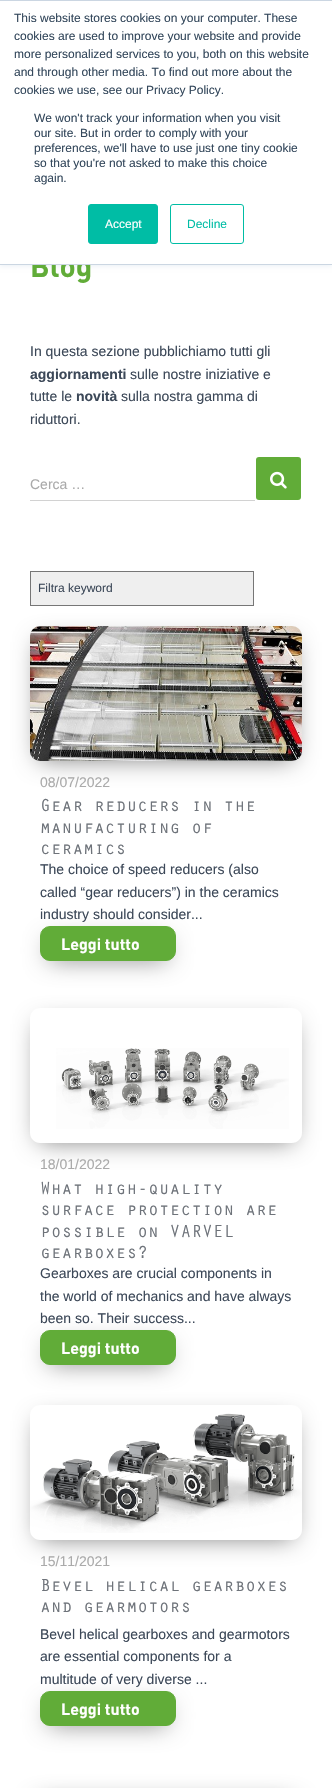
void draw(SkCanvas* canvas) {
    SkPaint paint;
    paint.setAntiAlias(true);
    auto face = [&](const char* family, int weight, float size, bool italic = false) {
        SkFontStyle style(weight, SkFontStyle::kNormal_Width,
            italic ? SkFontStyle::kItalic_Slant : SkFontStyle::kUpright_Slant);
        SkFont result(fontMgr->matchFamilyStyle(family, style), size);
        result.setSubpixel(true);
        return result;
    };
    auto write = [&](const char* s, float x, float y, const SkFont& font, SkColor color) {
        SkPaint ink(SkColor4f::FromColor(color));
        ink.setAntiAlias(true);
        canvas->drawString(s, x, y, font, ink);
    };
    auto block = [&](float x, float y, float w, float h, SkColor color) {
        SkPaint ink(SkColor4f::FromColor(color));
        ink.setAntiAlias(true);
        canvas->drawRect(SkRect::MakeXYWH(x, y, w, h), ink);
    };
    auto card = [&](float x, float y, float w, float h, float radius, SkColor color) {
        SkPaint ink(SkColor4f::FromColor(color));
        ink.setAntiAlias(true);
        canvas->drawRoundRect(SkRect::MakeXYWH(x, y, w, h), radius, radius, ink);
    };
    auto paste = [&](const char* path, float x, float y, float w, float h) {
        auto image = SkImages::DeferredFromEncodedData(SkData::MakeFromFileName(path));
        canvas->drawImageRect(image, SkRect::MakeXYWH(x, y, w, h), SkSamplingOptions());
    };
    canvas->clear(SK_ColorWHITE);
    paint.setColor(SkColorSetRGB(234, 240, 246));
    paint.setMaskFilter(SkMaskFilter::MakeBlur(kNormal_SkBlurStyle, 2.5f));
    canvas->drawRect(SkRect::MakeXYWH(0, 1, 332, 265), paint);
    paint.setMaskFilter(nullptr);
    auto kFont1 = face("DIN", 700, 30);
    write("Blog", 30, 277, kFont1, SkColorSetRGB(97, 172, 56));
    block(0, 1, 332, 263, SK_ColorWHITE);
    block(0, 0, 332, 1, SkColorSetRGB(203, 214, 226));
    block(0, 264, 332, 1, SkColorSetRGB(203, 214, 226));
    auto kFont2 = face("Liberation Sans", 400, 12);
    write("This website stores cookies on your computer. These", 14, 22, kFont2, SkColorSetRGB(51, 71, 91));
    write("cookies are used to improve your website and provide", 14, 40, kFont2, SkColorSetRGB(51, 71, 91));
    write("more personalized services to you, both on this website", 14, 58, kFont2, SkColorSetRGB(51, 71, 91));
    write("and through other media. To find out more about the", 14, 76, kFont2, SkColorSetRGB(51, 71, 91));
    write("cookies we use, see our Privacy Policy.", 14, 94, kFont2, SkColorSetRGB(51, 71, 91));
    write("We won't track your information when you visit", 34, 122, kFont2, SkColorSetRGB(51, 71, 91));
    write("our site. But in order to comply with your", 34, 137, kFont2, SkColorSetRGB(51, 71, 91));
    write("preferences, we'll have to use just one tiny cookie", 34, 152, kFont2, SkColorSetRGB(51, 71, 91));
    write("so that you're not asked to make this choice", 34, 167, kFont2, SkColorSetRGB(51, 71, 91));
    write("again.", 34, 182, kFont2, SkColorSetRGB(51, 71, 91));
    paint.setColor(SkColorSetRGB(0, 189, 165));
    canvas->drawRoundRect(SkRect::MakeXYWH(88.5f, 204.5f, 69, 39), 2.5f, 2.5f, paint);
    paint.setStyle(SkPaint::kStroke_Style);
    paint.setStrokeWidth(1);
    canvas->drawRoundRect(SkRect::MakeXYWH(88.5f, 204.5f, 69, 39), 2.5f, 2.5f, paint);
    write("Accept", 105, 228, kFont2, SK_ColorWHITE);
    canvas->drawRoundRect(SkRect::MakeXYWH(170.5f, 204.5f, 73, 39), 2.5f, 2.5f, paint);
    write("Decline", 187, 228, kFont2, SkColorSetRGB(0, 189, 165));
    auto kFont3 = face("Liberation Sans", 400, 14);
    write("In questa sezione pubblichiamo tutti gli", 30, 356, kFont3, SkColorSetRGB(60, 72, 88));
    auto kFont4 = face("Liberation Sans", 700, 14);
    write("aggiornamenti", 30, 379, kFont4, SkColorSetRGB(60, 72, 88));
    write("sulle nostre iniziative e", 130, 379, kFont3, SkColorSetRGB(60, 72, 88));
    write("tutte le", 30, 401, kFont3, SkColorSetRGB(60, 72, 88));
    write("novità", 76, 401, kFont4, SkColorSetRGB(60, 72, 88));
    write("sulla nostra gamma di", 121, 401, kFont3, SkColorSetRGB(60, 72, 88));
    write("riduttori.", 30, 424, kFont3, SkColorSetRGB(60, 72, 88));
    card(256, 457, 45, 43, 3, SkColorSetRGB(97, 172, 56));
    write("Cerca …", 30, 489, kFont3, SkColorSetRGB(170, 170, 170));
    paste("pic1.png", 270, 471, 17, 18);
    block(30, 500, 225, 1, SkColorSetRGB(210, 210, 210));
    paint.setStyle(SkPaint::kFill_Style);
    paint.setColor(SkColorSetRGB(239, 239, 239));
    canvas->drawRect(SkRect::MakeXYWH(30.5f, 571.5f, 223, 34), paint);
    paint.setStyle(SkPaint::kStroke_Style);
    paint.setColor(SkColorSetRGB(118, 118, 118));
    canvas->drawRect(SkRect::MakeXYWH(30.5f, 571.5f, 223, 34), paint);
    write("Filtra keyword", 38, 592, kFont2, SkColorSetRGB(60, 72, 88));
    paint.setStyle(SkPaint::kFill_Style);
    paint.setColor(SkColorSetARGB(135, 0, 0, 0));
    paint.setMaskFilter(SkMaskFilter::MakeBlur(kNormal_SkBlurStyle, 12.5f));
    canvas->drawRoundRect(SkRect::MakeXYWH(39, 642, 254, 117), 1, 1, paint);
    paint.setMaskFilter(nullptr);
    paste("pic2.png", 30, 626, 272, 135);
    write("08/07/2022", 40, 787, kFont3, SkColorSetRGB(170, 170, 170));
    auto kFont5 = face("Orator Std", 400, 18);
    write("Gear reducers in the", 40, 811, kFont5, SkColorSetRGB(110, 115, 122));
    write("manufacturing of", 40, 833, kFont5, SkColorSetRGB(110, 115, 122));
    write("ceramics", 40, 854, kFont5, SkColorSetRGB(110, 115, 122));
    write("The choice of speed reducers (also", 40, 874, kFont3, SkColorSetRGB(60, 72, 88));
    write("called “gear reducers”) in the ceramics", 40, 897, kFont3, SkColorSetRGB(60, 72, 88));
    write("industry should consider...", 40, 919, kFont3, SkColorSetRGB(60, 72, 88));
    paint.setMaskFilter(SkMaskFilter::MakeBlur(kNormal_SkBlurStyle, 12.5f));
    canvas->drawRoundRect(SkRect::MakeXYWH(49, 942, 118, 17), 1, 1, paint);
    paint.setMaskFilter(nullptr);
    paint.setColor(SkColorSetRGB(97, 172, 56));
    canvas->drawRoundRect(SkRect::MakeXYWH(40.5f, 926.5f, 135, 34), 9.5f, 9.5f, paint);
    paint.setStyle(SkPaint::kStroke_Style);
    canvas->drawRoundRect(SkRect::MakeXYWH(40.5f, 926.5f, 135, 34), 9.5f, 9.5f, paint);
    auto kFont6 = face("DIN", 700, 16);
    write("Leggi tutto", 61, 950, kFont6, SK_ColorWHITE);
    canvas->save();
    canvas->clipPath(SkPathBuilder(SkPathFillType::kEvenOdd).moveTo(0, 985).lineTo(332, 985).lineTo(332, 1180).lineTo(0, 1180).close().moveTo(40, 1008).lineTo(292, 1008).cubicTo(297.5f, 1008, 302, 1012.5f, 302, 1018).lineTo(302, 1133).cubicTo(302, 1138.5f, 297.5f, 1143, 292, 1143).lineTo(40, 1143).cubicTo(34.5f, 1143, 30, 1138.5f, 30, 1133).lineTo(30, 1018).cubicTo(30, 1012.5f, 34.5f, 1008, 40, 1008).close().detach(), true);
    paint.setStyle(SkPaint::kFill_Style);
    paint.setColor(SkColorSetARGB(135, 0, 0, 0));
    paint.setMaskFilter(SkMaskFilter::MakeBlur(kNormal_SkBlurStyle, 12.5f));
    canvas->drawRoundRect(SkRect::MakeXYWH(39, 1024, 254, 117), 1, 1, paint);
    paint.setMaskFilter(nullptr);
    canvas->restore();
    paste("pic3.png", 56, 1048, 233, 81);
    write("18/01/2022", 40, 1169, kFont3, SkColorSetRGB(170, 170, 170));
    write("What high-quality", 40, 1194, kFont5, SkColorSetRGB(110, 115, 122));
    write("surface protection are", 40, 1215, kFont5, SkColorSetRGB(110, 115, 122));
    write("possible on VARVEL", 40, 1237, kFont5, SkColorSetRGB(110, 115, 122));
    write("gearboxes?", 40, 1258, kFont5, SkColorSetRGB(110, 115, 122));
    write("Gearboxes are crucial components in", 40, 1278, kFont3, SkColorSetRGB(60, 72, 88));
    write("the world of mechanics and have always", 40, 1301, kFont3, SkColorSetRGB(60, 72, 88));
    write("been so. Their success...", 40, 1323, kFont3, SkColorSetRGB(60, 72, 88));
    paint.setMaskFilter(SkMaskFilter::MakeBlur(kNormal_SkBlurStyle, 12.5f));
    canvas->drawRoundRect(SkRect::MakeXYWH(49, 1346, 118, 17), 1, 1, paint);
    paint.setMaskFilter(nullptr);
    paint.setColor(SkColorSetRGB(97, 172, 56));
    canvas->drawRoundRect(SkRect::MakeXYWH(40.5f, 1330.5f, 135, 34), 9.5f, 9.5f, paint);
    paint.setStyle(SkPaint::kStroke_Style);
    canvas->drawRoundRect(SkRect::MakeXYWH(40.5f, 1330.5f, 135, 34), 9.5f, 9.5f, paint);
    write("Leggi tutto", 61, 1354, kFont6, SK_ColorWHITE);
    canvas->save();
    canvas->clipPath(SkPathBuilder(SkPathFillType::kEvenOdd).moveTo(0, 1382).lineTo(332, 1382).lineTo(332, 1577).lineTo(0, 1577).close().moveTo(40, 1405).lineTo(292, 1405).cubicTo(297.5f, 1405, 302, 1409.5f, 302, 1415).lineTo(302, 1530).cubicTo(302, 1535.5f, 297.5f, 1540, 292, 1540).lineTo(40, 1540).cubicTo(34.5f, 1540, 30, 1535.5f, 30, 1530).lineTo(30, 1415).cubicTo(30, 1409.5f, 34.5f, 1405, 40, 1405).close().detach(), true);
    paint.setStyle(SkPaint::kFill_Style);
    paint.setColor(SkColorSetARGB(135, 0, 0, 0));
    paint.setMaskFilter(SkMaskFilter::MakeBlur(kNormal_SkBlurStyle, 12.5f));
    canvas->drawRoundRect(SkRect::MakeXYWH(39, 1421, 254, 117), 1, 1, paint);
    paint.setMaskFilter(nullptr);
    canvas->restore();
    paste("pic4.png", 30, 1413, 272, 120);
    write("15/11/2021", 40, 1566, kFont3, SkColorSetRGB(170, 170, 170));
    write("Bevel helical gearboxes", 40, 1591, kFont5, SkColorSetRGB(110, 115, 122));
    write("and gearmotors", 40, 1612, kFont5, SkColorSetRGB(110, 115, 122));
    write("Bevel helical gearboxes and gearmotors", 40, 1639, kFont3, SkColorSetRGB(60, 72, 88));
    write("are essential components for a", 40, 1661, kFont3, SkColorSetRGB(60, 72, 88));
    write("multitude of very diverse ...", 40, 1684, kFont3, SkColorSetRGB(60, 72, 88));
    paint.setMaskFilter(SkMaskFilter::MakeBlur(kNormal_SkBlurStyle, 12.5f));
    canvas->drawRoundRect(SkRect::MakeXYWH(49, 1707, 118, 17), 1, 1, paint);
    paint.setMaskFilter(nullptr);
    paint.setColor(SkColorSetRGB(97, 172, 56));
    canvas->drawRoundRect(SkRect::MakeXYWH(40.5f, 1691.5f, 135, 34), 9.5f, 9.5f, paint);
    paint.setStyle(SkPaint::kStroke_Style);
    canvas->drawRoundRect(SkRect::MakeXYWH(40.5f, 1691.5f, 135, 34), 9.5f, 9.5f, paint);
    write("Leggi tutto", 61, 1715, kFont6, SK_ColorWHITE);
    paint.setStyle(SkPaint::kFill_Style);
    paint.setColor(SkColorSetARGB(135, 0, 0, 0));
    paint.setMaskFilter(SkMaskFilter::MakeBlur(kNormal_SkBlurStyle, 12.5f));
    canvas->drawRoundRect(SkRect::MakeXYWH(39, 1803, 254, 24), 1, 1, paint);
    paint.setMaskFilter(nullptr);
}
